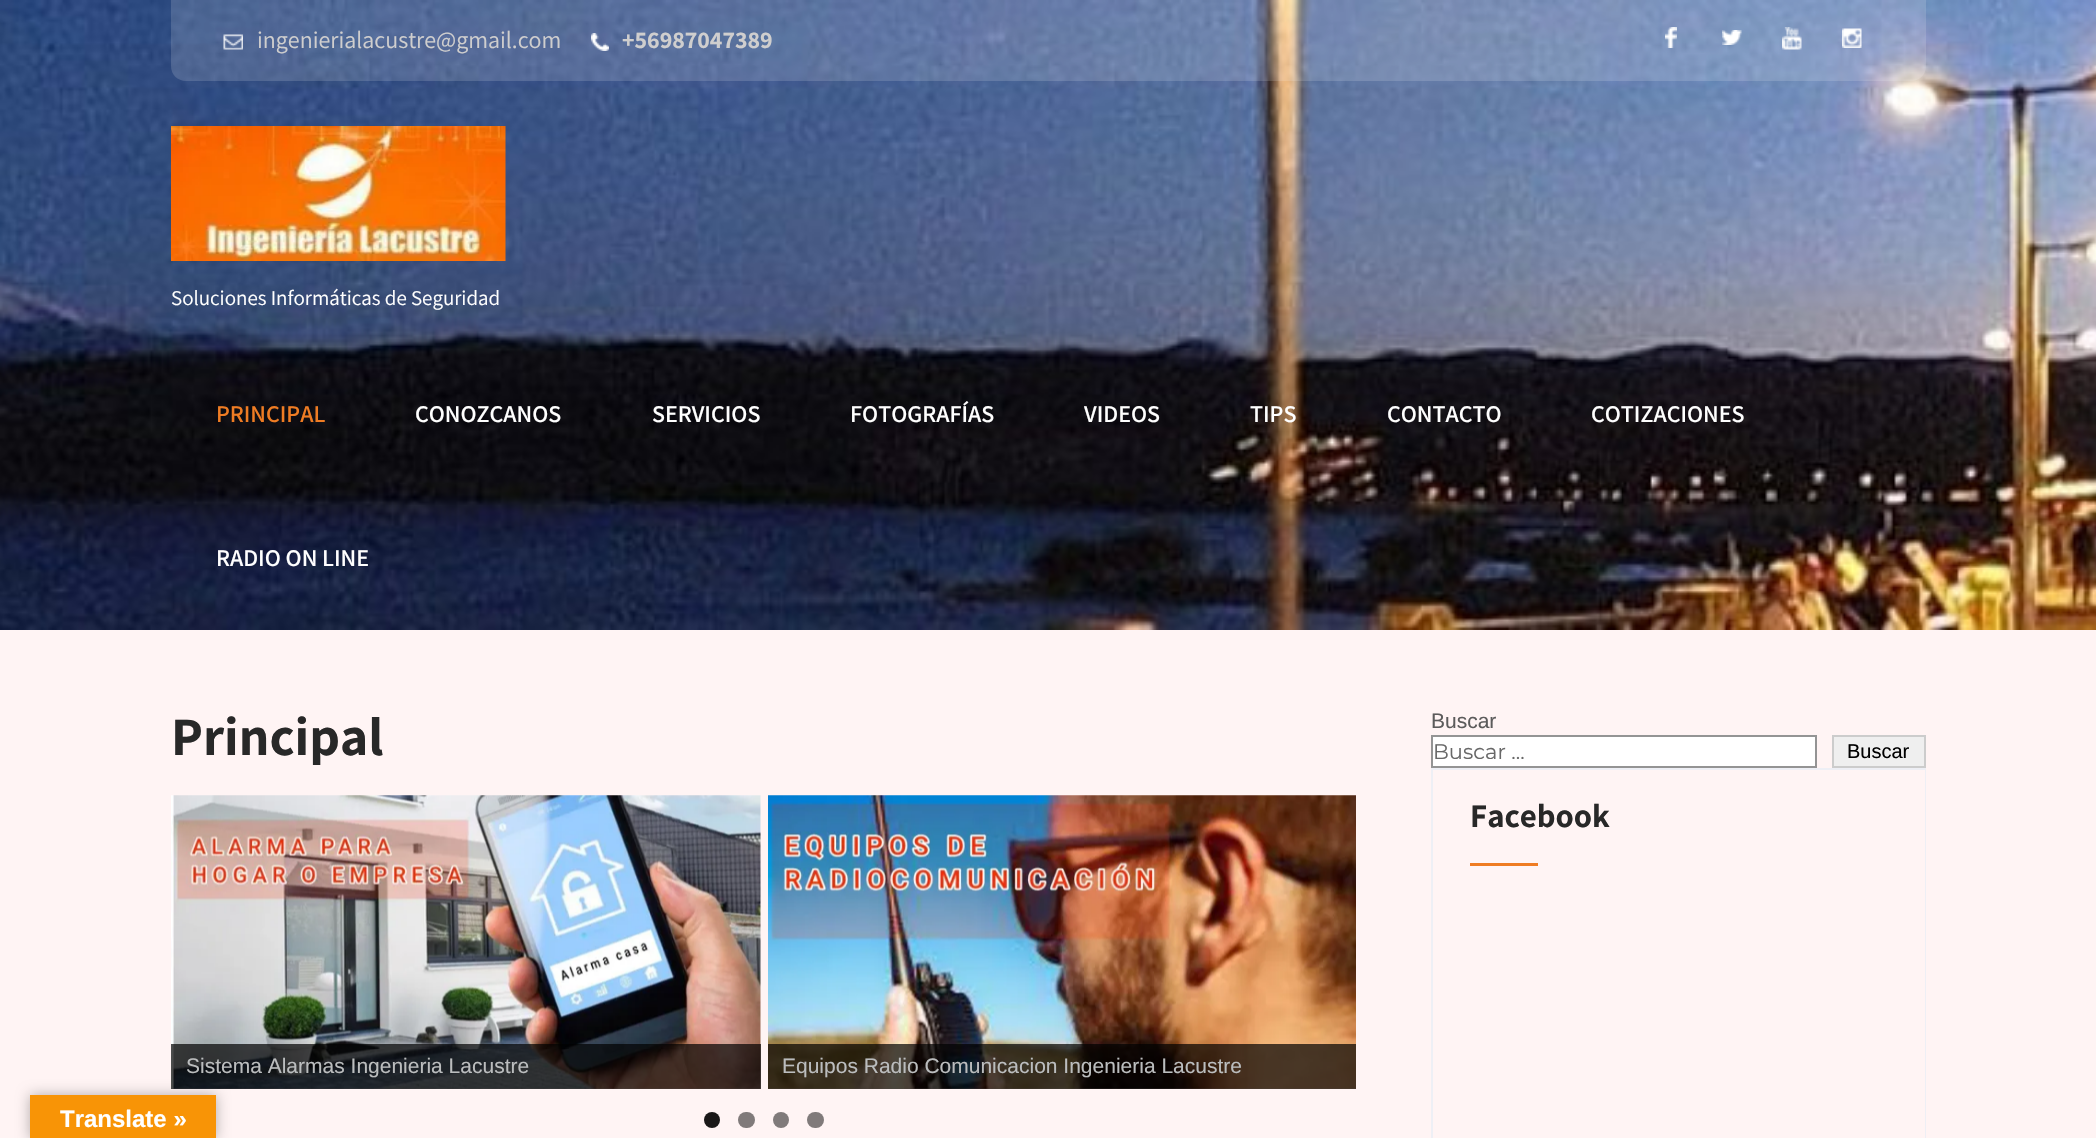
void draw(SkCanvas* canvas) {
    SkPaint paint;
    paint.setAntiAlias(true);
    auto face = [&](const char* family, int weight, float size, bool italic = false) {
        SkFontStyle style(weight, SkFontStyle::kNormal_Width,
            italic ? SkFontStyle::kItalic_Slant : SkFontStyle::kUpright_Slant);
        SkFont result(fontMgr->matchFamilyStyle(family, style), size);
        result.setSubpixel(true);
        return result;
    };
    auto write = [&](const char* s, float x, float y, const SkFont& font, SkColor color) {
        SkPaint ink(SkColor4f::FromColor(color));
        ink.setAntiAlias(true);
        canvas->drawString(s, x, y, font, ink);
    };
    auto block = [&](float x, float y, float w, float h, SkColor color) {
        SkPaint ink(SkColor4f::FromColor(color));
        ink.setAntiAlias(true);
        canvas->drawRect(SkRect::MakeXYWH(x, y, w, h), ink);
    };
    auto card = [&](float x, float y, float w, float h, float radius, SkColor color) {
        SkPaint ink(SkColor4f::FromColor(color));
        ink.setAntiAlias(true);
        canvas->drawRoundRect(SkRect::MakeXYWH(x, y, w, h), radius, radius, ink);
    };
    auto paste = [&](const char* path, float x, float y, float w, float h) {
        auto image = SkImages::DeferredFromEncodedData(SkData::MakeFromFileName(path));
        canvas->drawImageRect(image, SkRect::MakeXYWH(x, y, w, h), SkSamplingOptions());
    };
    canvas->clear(SkColorSetRGB(255, 244, 244));
    paste("pic1.png", 0, 0, 2096, 630);
    paint.setColor(SkColorSetARGB(38, 255, 255, 255));
    canvas->drawPath(SkPathBuilder().moveTo(171, 0).lineTo(1926, 0).lineTo(1926, 66).cubicTo(1926, 74.5f, 1919.5f, 81, 1911, 81).lineTo(186, 81).cubicTo(177.5f, 81, 171, 74.5f, 171, 66).close().detach(), paint);
    paste("pic2.png", 223, 34, 20, 16);
    auto kFont1 = face("Assistant", 400, 24);
    write("ingenierialacustre@gmail.com", 257, 48, kFont1, SkColorSetRGB(207, 206, 206));
    paste("pic3.png", 591, 33, 18, 18);
    auto kFont2 = face("Assistant", 700, 24);
    write("+56987047389", 622, 48, kFont2, SkColorSetRGB(207, 206, 206));
    paste("pic4.png", 1665, 27, 12, 21);
    paste("pic5.png", 1722, 30, 20, 15);
    paste("pic6.png", 1782, 27, 20, 23);
    paste("pic7.png", 1842, 28, 20, 20);
    paste("pic8.png", 171, 126, 335, 135);
    auto kFont3 = face("Assistant", 400, 21);
    write("Soluciones Informáticas de Seguridad", 171, 305, kFont3, SK_ColorWHITE);
    auto kFont4 = face("Assistant", 600, 24);
    write("PRINCIPAL", 216, 422, kFont4, SkColorSetRGB(239, 124, 35));
    write("CONOZCANOS", 415, 422, kFont4, SK_ColorWHITE);
    write("SERVICIOS", 652, 422, kFont4, SK_ColorWHITE);
    write("FOTOGRAFÍAS", 850, 422, kFont4, SK_ColorWHITE);
    write("VIDEOS", 1084, 422, kFont4, SK_ColorWHITE);
    write("TIPS", 1250, 422, kFont4, SK_ColorWHITE);
    write("CONTACTO", 1387, 422, kFont4, SK_ColorWHITE);
    write("COTIZACIONES", 1591, 422, kFont4, SK_ColorWHITE);
    write("RADIO ON LINE", 216, 566, kFont4, SK_ColorWHITE);
    auto kFont5 = face("Assistant", 700, 54);
    write("Principal", 171, 755, kFont5, SkColorSetRGB(40, 40, 40));
    paste("pic9.png", 171, 795, 590, 294);
    block(171, 1044, 590, 45, SkColorSetARGB(179, 0, 0, 0));
    auto kFont6 = face("Liberation Sans", 400, 21);
    write("Sistema Alarmas Ingenieria Lacustre", 186, 1073, kFont6, SkColorSetRGB(187, 189, 190));
    paste("pic10.png", 768, 795, 588, 294);
    block(768, 1044, 588, 45, SkColorSetARGB(179, 0, 0, 0));
    write("Equipos Radio Comunicacion Ingenieria Lacustre", 782, 1073, kFont6, SkColorSetRGB(187, 189, 190));
    paint.setColor(SkColorSetRGB(26, 24, 24));
    canvas->drawCircle(712, 1120, 8, paint);
    card(738, 1112, 17, 16, 8, SkColorSetRGB(128, 122, 122));
    paint.setColor(SkColorSetRGB(128, 122, 122));
    canvas->drawCircle(781, 1120, 8, paint);
    card(807, 1112, 17, 16, 8, SkColorSetRGB(128, 122, 122));
    write("Buscar", 1431, 728, kFont6, SkColorSetRGB(92, 91, 91));
    paint.setColor(SK_ColorWHITE);
    canvas->drawRect(SkRect::MakeXYWH(1432, 736, 384, 31), paint);
    paint.setStyle(SkPaint::kStroke_Style);
    paint.setStrokeWidth(2);
    paint.setColor(SkColorSetRGB(148, 148, 148));
    canvas->drawRect(SkRect::MakeXYWH(1432, 736, 384, 31), paint);
    auto kFont7 = face("Montserrat", 400, 21);
    write("Buscar ...", 1433, 759, kFont7, SkColorSetRGB(104, 104, 104));
    paint.setStyle(SkPaint::kFill_Style);
    paint.setColor(SkColorSetRGB(239, 239, 239));
    canvas->drawRect(SkRect::MakeXYWH(1833, 736, 92, 31), paint);
    paint.setStyle(SkPaint::kStroke_Style);
    paint.setColor(SkColorSetRGB(204, 204, 204));
    canvas->drawRect(SkRect::MakeXYWH(1833, 736, 92, 31), paint);
    auto kFont8 = face("Liberation Sans", 400, 20);
    write("Buscar", 1847, 758, kFont8, SK_ColorBLACK);
    block(1431, 768, 495, 2, SkColorSetRGB(238, 239, 245));
    block(1925, 768, 1, 370, SkColorSetRGB(238, 239, 245));
    block(1431, 768, 2, 370, SkColorSetRGB(238, 239, 245));
    auto kFont9 = face("Assistant", 700, 33);
    write("Facebook", 1470, 827, kFont9, SkColorSetRGB(40, 40, 40));
    block(1470, 863, 68, 3, SkColorSetRGB(239, 124, 35));
    paint.setStyle(SkPaint::kFill_Style);
    paint.setColor(SkColorSetARGB(77, 0, 0, 0));
    paint.setMaskFilter(SkMaskFilter::MakeBlur(kNormal_SkBlurStyle, 7));
    canvas->drawRect(SkRect::MakeXYWH(30, 1095, 186, 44), paint);
    paint.setMaskFilter(nullptr);
    block(30, 1095, 186, 43, SkColorSetRGB(248, 148, 6));
    auto kFont10 = face("Liberation Sans", 700, 24);
    write("Translate »", 60, 1127, kFont10, SK_ColorWHITE);
}
